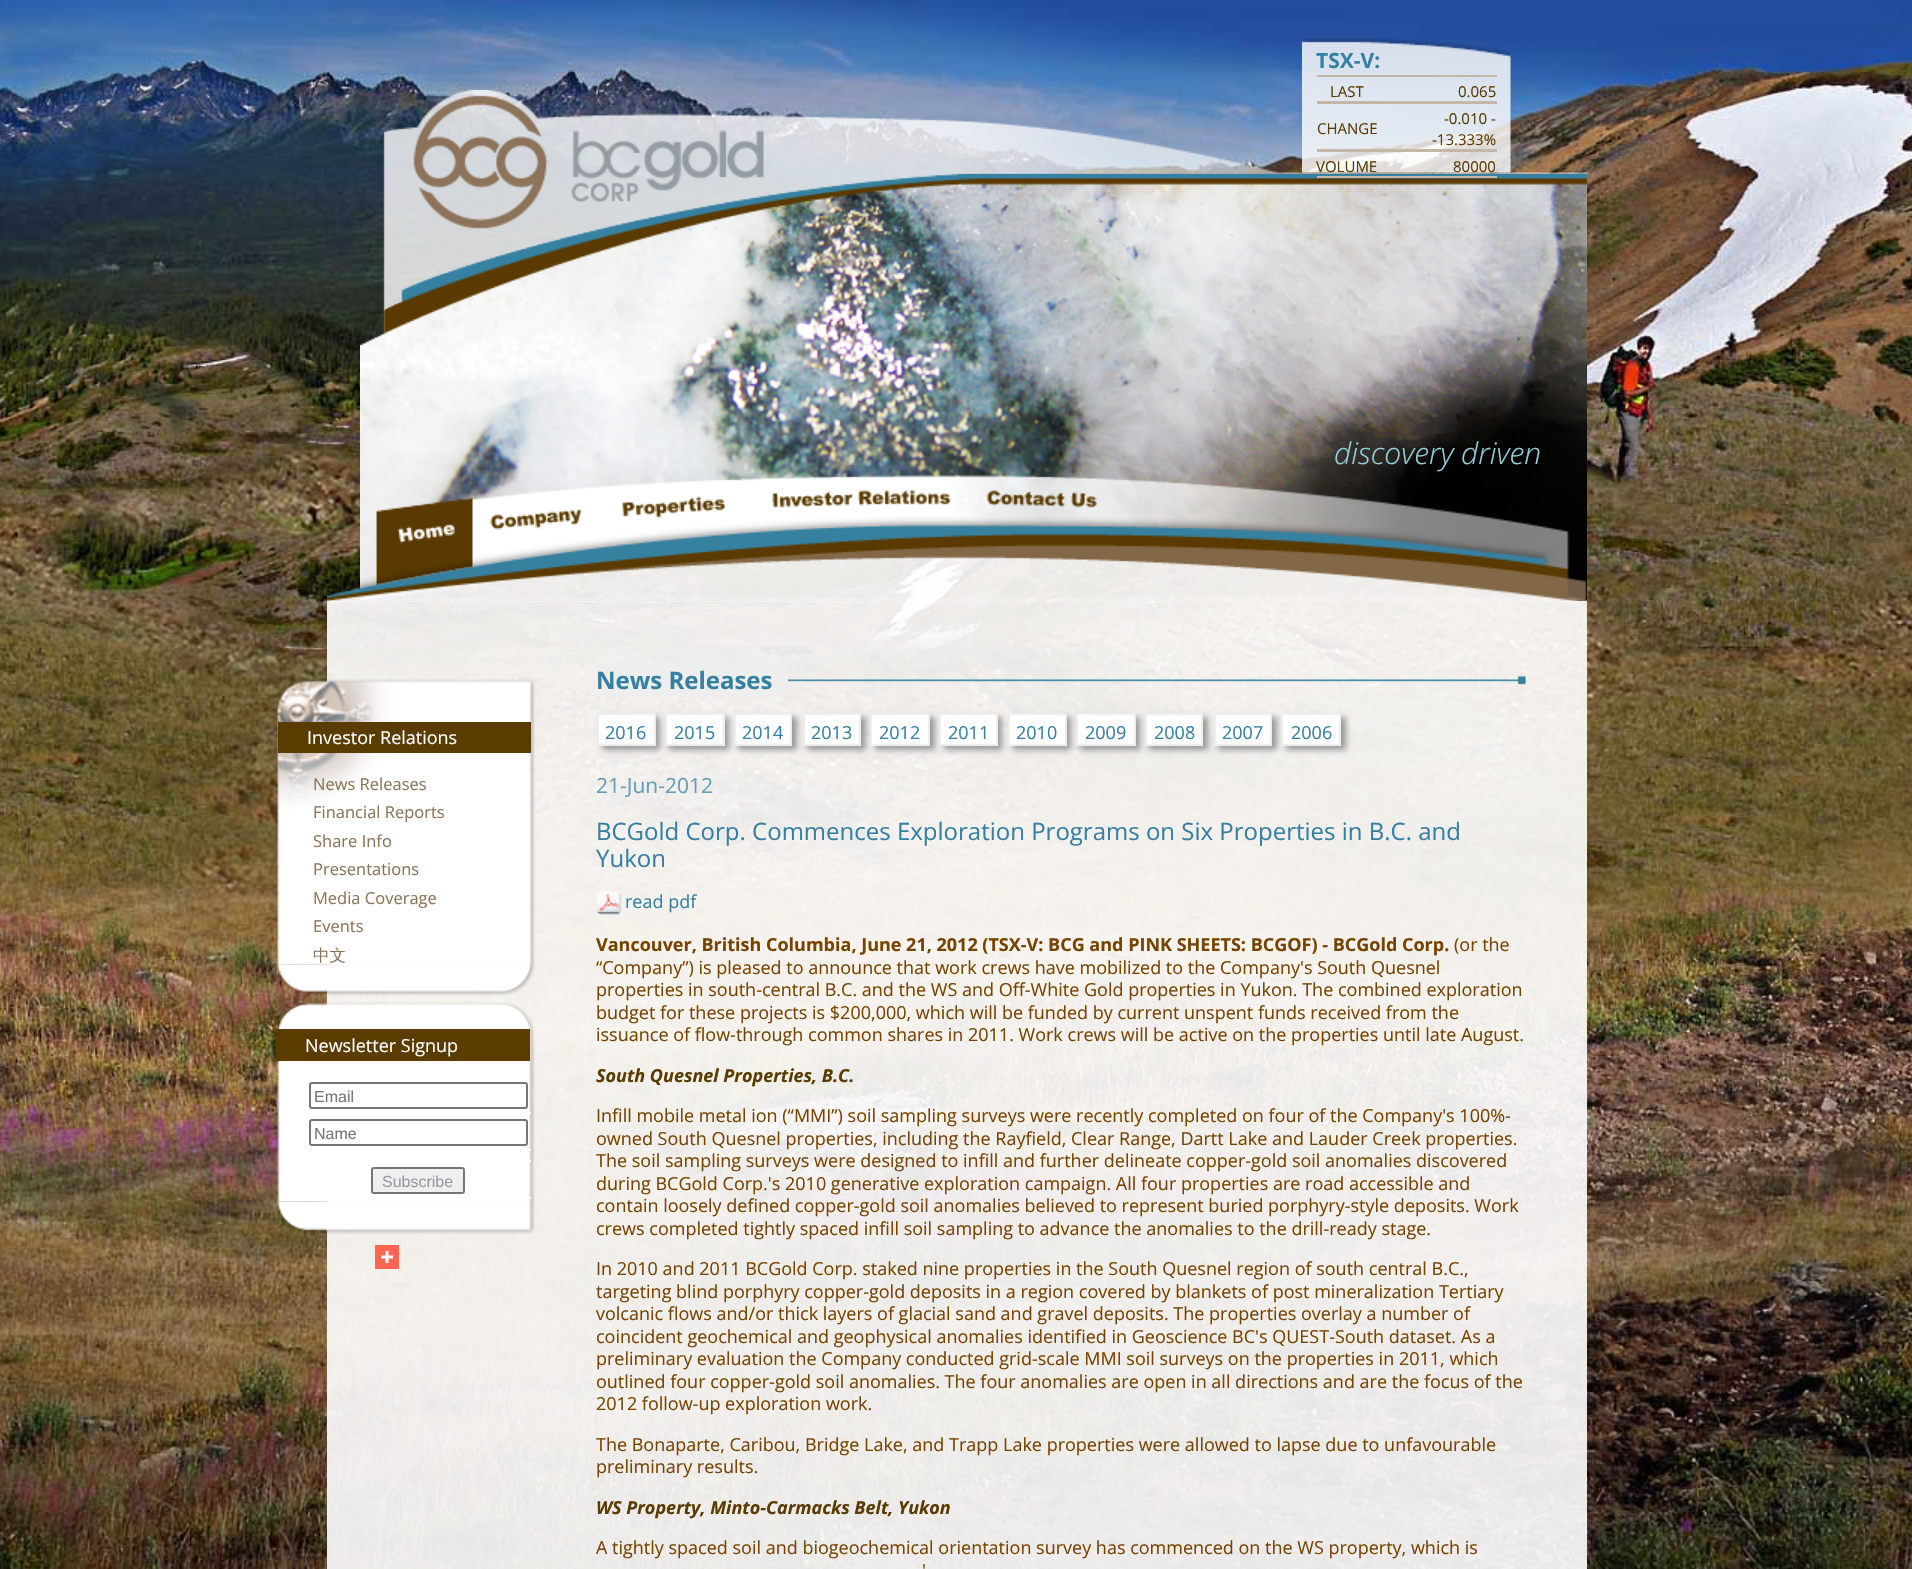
void draw(SkCanvas* canvas) {
    SkPaint paint;
    paint.setAntiAlias(true);
    auto face = [&](const char* family, int weight, float size, bool italic = false) {
        SkFontStyle style(weight, SkFontStyle::kNormal_Width,
            italic ? SkFontStyle::kItalic_Slant : SkFontStyle::kUpright_Slant);
        SkFont result(fontMgr->matchFamilyStyle(family, style), size);
        result.setSubpixel(true);
        return result;
    };
    auto write = [&](const char* s, float x, float y, const SkFont& font, SkColor color) {
        SkPaint ink(SkColor4f::FromColor(color));
        ink.setAntiAlias(true);
        canvas->drawString(s, x, y, font, ink);
    };
    auto block = [&](float x, float y, float w, float h, SkColor color) {
        SkPaint ink(SkColor4f::FromColor(color));
        ink.setAntiAlias(true);
        canvas->drawRect(SkRect::MakeXYWH(x, y, w, h), ink);
    };
    auto paste = [&](const char* path, float x, float y, float w, float h) {
        auto image = SkImages::DeferredFromEncodedData(SkData::MakeFromFileName(path));
        canvas->drawImageRect(image, SkRect::MakeXYWH(x, y, w, h), SkSamplingOptions());
    };
    canvas->clear(SK_ColorWHITE);
    paste("pic1.png", 0, 0, 1912, 1569);
    paste("pic4.png", 360, 90, 1227, 510);
    paste("pic5.png", 360, 174, 1227, 426);
    paste("pic2.png", 327, 475, 1260, 127);
    paste("pic3.png", 1302, 38, 209, 135);
    auto kFont1 = face("Open Sans", 700, 21);
    write("TSX-V:", 1316, 68, kFont1, SkColorSetRGB(54, 128, 162));
    block(1317, 75, 180, 2, SkColorSetRGB(197, 183, 168));
    block(1317, 101, 180, 1, SkColorSetRGB(197, 183, 168));
    auto kFont2 = face("Open Sans", 400, 15);
    write("LAST", 1330, 97, kFont2, SkColorSetRGB(90, 59, 0));
    write("0.065", 1458, 97, kFont2, SkColorSetRGB(90, 59, 0));
    block(1317, 102, 180, 2, SkColorSetRGB(197, 183, 168));
    block(1317, 149, 180, 1, SkColorSetRGB(197, 183, 168));
    write("CHANGE", 1317, 134, kFont2, SkColorSetRGB(90, 59, 0));
    write("-0.010 -", 1444, 124, kFont2, SkColorSetRGB(90, 59, 0));
    write("-13.333%", 1432, 145, kFont2, SkColorSetRGB(90, 59, 0));
    block(1317, 150, 180, 2, SkColorSetRGB(197, 183, 168));
    block(1317, 176, 180, 2, SkColorSetRGB(197, 183, 168));
    write("VOLUME", 1316, 172, kFont2, SkColorSetRGB(90, 59, 0));
    write("80000", 1453, 172, kFont2, SkColorSetRGB(90, 59, 0));
    auto kFont3 = face("Open Sans", 300, 30, true);
    write("discovery driven", 1334, 464, kFont3, SkColorSetRGB(150, 208, 220));
    paste("pic6.png", 376, 497, 97, 88);
    paste("pic7.png", 490, 509, 93, 21);
    paste("pic8.png", 622, 496, 103, 22);
    paste("pic9.png", 772, 490, 180, 18);
    paste("pic10.png", 986, 490, 111, 18);
    block(327, 601, 1260, 968, SkColorSetARGB(230, 255, 255, 255));
    paste("pic11.png", 276, 679, 259, 286);
    block(278, 722, 253, 31, SkColorSetRGB(90, 59, 0));
    auto kFont4 = face("Open Sans", 400, 18);
    write("Investor Relations", 307, 744, kFont4, SK_ColorWHITE);
    auto kFont5 = face("Open Sans", 400, 16.5f);
    write("News Releases", 313, 790, kFont5, SkColorSetRGB(140, 116, 89));
    write("Financial Reports", 313, 818, kFont5, SkColorSetRGB(140, 116, 89));
    write("Share Info", 313, 847, kFont5, SkColorSetRGB(140, 116, 89));
    write("Presentations", 313, 875, kFont5, SkColorSetRGB(140, 116, 89));
    write("Media Coverage", 313, 904, kFont5, SkColorSetRGB(140, 116, 89));
    write("Events", 313, 932, kFont5, SkColorSetRGB(140, 116, 89));
    auto kFont6 = face("WenQuanYi Zen Hei", 500, 16.5f);
    write("中文", 313, 961, kFont6, SkColorSetRGB(140, 116, 89));
    paste("pic12.png", 277, 964, 258, 32);
    paste("pic13.png", 276, 1002, 259, 200);
    block(276, 1029, 254, 32, SkColorSetRGB(90, 59, 0));
    write("Newsletter Signup", 305, 1052, kFont4, SK_ColorWHITE);
    block(529, 1112, 2, 2, SK_ColorWHITE);
    paint.setStyle(SkPaint::kStroke_Style);
    paint.setStrokeWidth(2);
    paint.setColor(SkColorSetRGB(118, 118, 118));
    canvas->drawRoundRect(SkRect::MakeXYWH(310, 1083, 217, 25), 2, 2, paint);
    auto kFont7 = face("Liberation Sans", 400, 16);
    write("Email", 314, 1102, kFont7, SkColorSetRGB(117, 117, 117));
    block(529, 1149, 2, 2, SK_ColorWHITE);
    canvas->drawRoundRect(SkRect::MakeXYWH(310, 1120, 217, 25), 2, 2, paint);
    write("Name", 314, 1139, kFont7, SkColorSetRGB(117, 117, 117));
    block(529, 1160, 2, 2, SK_ColorWHITE);
    block(529, 1197, 2, 2, SK_ColorWHITE);
    paint.setStyle(SkPaint::kFill_Style);
    paint.setColor(SkColorSetRGB(239, 239, 239));
    canvas->drawRoundRect(SkRect::MakeXYWH(372, 1168, 92, 25), 2, 2, paint);
    paint.setStyle(SkPaint::kStroke_Style);
    paint.setColor(SkColorSetRGB(118, 118, 118));
    canvas->drawRoundRect(SkRect::MakeXYWH(372, 1168, 92, 25), 2, 2, paint);
    write("Subscribe", 382, 1187, kFont7, SkColorSetRGB(148, 156, 161));
    paste("pic14.png", 277, 1201, 258, 33);
    block(375, 1245, 24, 24, SkColorSetRGB(255, 101, 80));
    paste("pic15.png", 381, 1251, 12, 12);
    paste("pic16.png", 788, 676, 738, 9);
    block(597, 663, 191, 33, SkColorSetRGB(238, 238, 238));
    auto kFont8 = face("Open Sans", 700, 24);
    write("News Releases", 596, 689, kFont8, SkColorSetRGB(54, 128, 162));
    paint.setStyle(SkPaint::kFill_Style);
    paint.setColor(SkColorSetRGB(153, 153, 153));
    paint.setMaskFilter(SkMaskFilter::MakeBlur(kNormal_SkBlurStyle, 3));
    canvas->drawRect(SkRect::MakeXYWH(602, 717, 58, 33), paint);
    paint.setMaskFilter(nullptr);
    paint.setColor(SK_ColorWHITE);
    canvas->drawRect(SkRect::MakeXYWH(598, 714, 57, 31), paint);
    paint.setStyle(SkPaint::kStroke_Style);
    paint.setColor(SkColorSetRGB(238, 238, 238));
    canvas->drawRect(SkRect::MakeXYWH(598, 714, 57, 31), paint);
    write("2016", 605, 739, kFont4, SkColorSetRGB(54, 128, 162));
    paint.setStyle(SkPaint::kFill_Style);
    paint.setColor(SkColorSetRGB(153, 153, 153));
    paint.setMaskFilter(SkMaskFilter::MakeBlur(kNormal_SkBlurStyle, 3));
    canvas->drawRect(SkRect::MakeXYWH(669, 717, 60, 33), paint);
    paint.setMaskFilter(nullptr);
    paint.setColor(SK_ColorWHITE);
    canvas->drawRect(SkRect::MakeXYWH(666, 714, 58, 31), paint);
    paint.setStyle(SkPaint::kStroke_Style);
    paint.setColor(SkColorSetRGB(238, 238, 238));
    canvas->drawRect(SkRect::MakeXYWH(666, 714, 58, 31), paint);
    write("2015", 674, 739, kFont4, SkColorSetRGB(54, 128, 162));
    paint.setStyle(SkPaint::kFill_Style);
    paint.setColor(SkColorSetRGB(153, 153, 153));
    paint.setMaskFilter(SkMaskFilter::MakeBlur(kNormal_SkBlurStyle, 3));
    canvas->drawRect(SkRect::MakeXYWH(738, 717, 59, 33), paint);
    paint.setMaskFilter(nullptr);
    paint.setColor(SK_ColorWHITE);
    canvas->drawRect(SkRect::MakeXYWH(735, 714, 56, 31), paint);
    paint.setStyle(SkPaint::kStroke_Style);
    paint.setColor(SkColorSetRGB(238, 238, 238));
    canvas->drawRect(SkRect::MakeXYWH(735, 714, 56, 31), paint);
    write("2014", 742, 739, kFont4, SkColorSetRGB(54, 128, 162));
    paint.setStyle(SkPaint::kFill_Style);
    paint.setColor(SkColorSetRGB(153, 153, 153));
    paint.setMaskFilter(SkMaskFilter::MakeBlur(kNormal_SkBlurStyle, 3));
    canvas->drawRect(SkRect::MakeXYWH(807, 717, 59, 33), paint);
    paint.setMaskFilter(nullptr);
    paint.setColor(SK_ColorWHITE);
    canvas->drawRect(SkRect::MakeXYWH(804, 714, 56, 31), paint);
    paint.setStyle(SkPaint::kStroke_Style);
    paint.setColor(SkColorSetRGB(238, 238, 238));
    canvas->drawRect(SkRect::MakeXYWH(804, 714, 56, 31), paint);
    write("2013", 811, 739, kFont4, SkColorSetRGB(54, 128, 162));
    paint.setStyle(SkPaint::kFill_Style);
    paint.setColor(SkColorSetRGB(153, 153, 153));
    paint.setMaskFilter(SkMaskFilter::MakeBlur(kNormal_SkBlurStyle, 3));
    canvas->drawRect(SkRect::MakeXYWH(875, 717, 60, 33), paint);
    paint.setMaskFilter(nullptr);
    paint.setColor(SK_ColorWHITE);
    canvas->drawRect(SkRect::MakeXYWH(871, 714, 58, 31), paint);
    paint.setStyle(SkPaint::kStroke_Style);
    paint.setColor(SkColorSetRGB(238, 238, 238));
    canvas->drawRect(SkRect::MakeXYWH(871, 714, 58, 31), paint);
    write("2012", 879, 739, kFont4, SkColorSetRGB(54, 128, 162));
    paint.setStyle(SkPaint::kFill_Style);
    paint.setColor(SkColorSetRGB(153, 153, 153));
    paint.setMaskFilter(SkMaskFilter::MakeBlur(kNormal_SkBlurStyle, 3));
    canvas->drawRect(SkRect::MakeXYWH(944, 717, 58, 33), paint);
    paint.setMaskFilter(nullptr);
    paint.setColor(SK_ColorWHITE);
    canvas->drawRect(SkRect::MakeXYWH(940, 714, 57, 31), paint);
    paint.setStyle(SkPaint::kStroke_Style);
    paint.setColor(SkColorSetRGB(238, 238, 238));
    canvas->drawRect(SkRect::MakeXYWH(940, 714, 57, 31), paint);
    write("2011", 948, 739, kFont4, SkColorSetRGB(54, 128, 162));
    paint.setStyle(SkPaint::kFill_Style);
    paint.setColor(SkColorSetRGB(153, 153, 153));
    paint.setMaskFilter(SkMaskFilter::MakeBlur(kNormal_SkBlurStyle, 3));
    canvas->drawRect(SkRect::MakeXYWH(1013, 717, 58, 33), paint);
    paint.setMaskFilter(nullptr);
    paint.setColor(SK_ColorWHITE);
    canvas->drawRect(SkRect::MakeXYWH(1009, 714, 57, 31), paint);
    paint.setStyle(SkPaint::kStroke_Style);
    paint.setColor(SkColorSetRGB(238, 238, 238));
    canvas->drawRect(SkRect::MakeXYWH(1009, 714, 57, 31), paint);
    write("2010", 1016, 739, kFont4, SkColorSetRGB(54, 128, 162));
    paint.setStyle(SkPaint::kFill_Style);
    paint.setColor(SkColorSetRGB(153, 153, 153));
    paint.setMaskFilter(SkMaskFilter::MakeBlur(kNormal_SkBlurStyle, 3));
    canvas->drawRect(SkRect::MakeXYWH(1080, 717, 60, 33), paint);
    paint.setMaskFilter(nullptr);
    paint.setColor(SK_ColorWHITE);
    canvas->drawRect(SkRect::MakeXYWH(1077, 714, 58, 31), paint);
    paint.setStyle(SkPaint::kStroke_Style);
    paint.setColor(SkColorSetRGB(238, 238, 238));
    canvas->drawRect(SkRect::MakeXYWH(1077, 714, 58, 31), paint);
    write("2009", 1085, 739, kFont4, SkColorSetRGB(54, 128, 162));
    paint.setStyle(SkPaint::kFill_Style);
    paint.setColor(SkColorSetRGB(153, 153, 153));
    paint.setMaskFilter(SkMaskFilter::MakeBlur(kNormal_SkBlurStyle, 3));
    canvas->drawRect(SkRect::MakeXYWH(1149, 717, 59, 33), paint);
    paint.setMaskFilter(nullptr);
    paint.setColor(SK_ColorWHITE);
    canvas->drawRect(SkRect::MakeXYWH(1146, 714, 56, 31), paint);
    paint.setStyle(SkPaint::kStroke_Style);
    paint.setColor(SkColorSetRGB(238, 238, 238));
    canvas->drawRect(SkRect::MakeXYWH(1146, 714, 56, 31), paint);
    write("2008", 1154, 739, kFont4, SkColorSetRGB(54, 128, 162));
    paint.setStyle(SkPaint::kFill_Style);
    paint.setColor(SkColorSetRGB(153, 153, 153));
    paint.setMaskFilter(SkMaskFilter::MakeBlur(kNormal_SkBlurStyle, 3));
    canvas->drawRect(SkRect::MakeXYWH(1218, 717, 59, 33), paint);
    paint.setMaskFilter(nullptr);
    paint.setColor(SK_ColorWHITE);
    canvas->drawRect(SkRect::MakeXYWH(1215, 714, 56, 31), paint);
    paint.setStyle(SkPaint::kStroke_Style);
    paint.setColor(SkColorSetRGB(238, 238, 238));
    canvas->drawRect(SkRect::MakeXYWH(1215, 714, 56, 31), paint);
    write("2007", 1222, 739, kFont4, SkColorSetRGB(54, 128, 162));
    paint.setStyle(SkPaint::kFill_Style);
    paint.setColor(SkColorSetRGB(153, 153, 153));
    paint.setMaskFilter(SkMaskFilter::MakeBlur(kNormal_SkBlurStyle, 3));
    canvas->drawRect(SkRect::MakeXYWH(1286, 717, 60, 33), paint);
    paint.setMaskFilter(nullptr);
    paint.setColor(SK_ColorWHITE);
    canvas->drawRect(SkRect::MakeXYWH(1282, 714, 58, 31), paint);
    paint.setStyle(SkPaint::kStroke_Style);
    paint.setColor(SkColorSetRGB(238, 238, 238));
    canvas->drawRect(SkRect::MakeXYWH(1282, 714, 58, 31), paint);
    write("2006", 1291, 739, kFont4, SkColorSetRGB(54, 128, 162));
    auto kFont9 = face("Open Sans", 400, 21);
    write("21-Jun-2012", 596, 793, kFont9, SkColorSetRGB(100, 158, 185));
    auto kFont10 = face("Open Sans", 400, 24);
    write("BCGold Corp. Commences Exploration Programs on Six Properties in B.C. and", 596, 840, kFont10, SkColorSetRGB(54, 128, 162));
    write("Yukon", 596, 867, kFont10, SkColorSetRGB(54, 128, 162));
    paste("pic17.png", 597, 891, 24, 24);
    write("read pdf", 625, 908, kFont4, SkColorSetRGB(54, 128, 162));
    auto kFont11 = face("Open Sans", 700, 18);
    write("Vancouver, British Columbia, June 21, 2012 (TSX-V: BCG and PINK SHEETS: BCGOF) - BCGold Corp.", 596, 951, kFont11, SkColorSetRGB(119, 68, 0));
    write("(or the", 1454, 951, kFont4, SkColorSetRGB(119, 68, 0));
    write("“Company”) is pleased to announce that work crews have mobilized to the Company's South Quesnel", 596, 974, kFont4, SkColorSetRGB(119, 68, 0));
    write("properties in south-central B.C. and the WS and Off-White Gold properties in Yukon. The combined exploration", 596, 996, kFont4, SkColorSetRGB(119, 68, 0));
    write("budget for these projects is $200,000, which will be funded by current unspent funds received from the", 596, 1019, kFont4, SkColorSetRGB(119, 68, 0));
    write("issuance of flow-through common shares in 2011. Work crews will be active on the properties until late August.", 596, 1041, kFont4, SkColorSetRGB(119, 68, 0));
    auto kFont12 = face("Open Sans", 700, 18, true);
    write("South Quesnel Properties, B.C.", 596, 1082, kFont12, SkColorSetRGB(90, 59, 0));
    write("Infill mobile metal ion (“MMI”) soil sampling surveys were recently completed on four of the Company's 100%-", 596, 1122, kFont4, SkColorSetRGB(119, 68, 0));
    write("owned South Quesnel properties, including the Rayfield, Clear Range, Dartt Lake and Lauder Creek properties.", 596, 1145, kFont4, SkColorSetRGB(119, 68, 0));
    write("The soil sampling surveys were designed to infill and further delineate copper-gold soil anomalies discovered", 596, 1167, kFont4, SkColorSetRGB(119, 68, 0));
    write("during BCGold Corp.'s 2010 generative exploration campaign. All four properties are road accessible and", 596, 1190, kFont4, SkColorSetRGB(119, 68, 0));
    write("contain loosely defined copper-gold soil anomalies believed to represent buried porphyry-style deposits. Work", 596, 1212, kFont4, SkColorSetRGB(119, 68, 0));
    write("crews completed tightly spaced infill soil sampling to advance the anomalies to the drill-ready stage.", 596, 1235, kFont4, SkColorSetRGB(119, 68, 0));
    write("In 2010 and 2011 BCGold Corp. staked nine properties in the South Quesnel region of south central B.C.,", 596, 1275, kFont4, SkColorSetRGB(119, 68, 0));
    write("targeting blind porphyry copper-gold deposits in a region covered by blankets of post mineralization Tertiary", 596, 1298, kFont4, SkColorSetRGB(119, 68, 0));
    write("volcanic flows and/or thick layers of glacial sand and gravel deposits. The properties overlay a number of", 596, 1320, kFont4, SkColorSetRGB(119, 68, 0));
    write("coincident geochemical and geophysical anomalies identified in Geoscience BC's QUEST-South dataset. As a", 596, 1343, kFont4, SkColorSetRGB(119, 68, 0));
    write("preliminary evaluation the Company conducted grid-scale MMI soil surveys on the properties in 2011, which", 596, 1365, kFont4, SkColorSetRGB(119, 68, 0));
    write("outlined four copper-gold soil anomalies. The four anomalies are open in all directions and are the focus of the", 596, 1388, kFont4, SkColorSetRGB(119, 68, 0));
    write("2012 follow-up exploration work.", 596, 1410, kFont4, SkColorSetRGB(119, 68, 0));
    write("The Bonaparte, Caribou, Bridge Lake, and Trapp Lake properties were allowed to lapse due to unfavourable", 596, 1451, kFont4, SkColorSetRGB(119, 68, 0));
    write("preliminary results.", 596, 1473, kFont4, SkColorSetRGB(119, 68, 0));
    write("WS Property, Minto-Carmacks Belt, Yukon", 596, 1514, kFont12, SkColorSetRGB(90, 59, 0));
    write("A tightly spaced soil and biogeochemical orientation survey has commenced on the WS property, which is", 596, 1554, kFont4, SkColorSetRGB(119, 68, 0));
    write("'", 922, 1577, kFont4, SkColorSetRGB(119, 68, 0));
}
